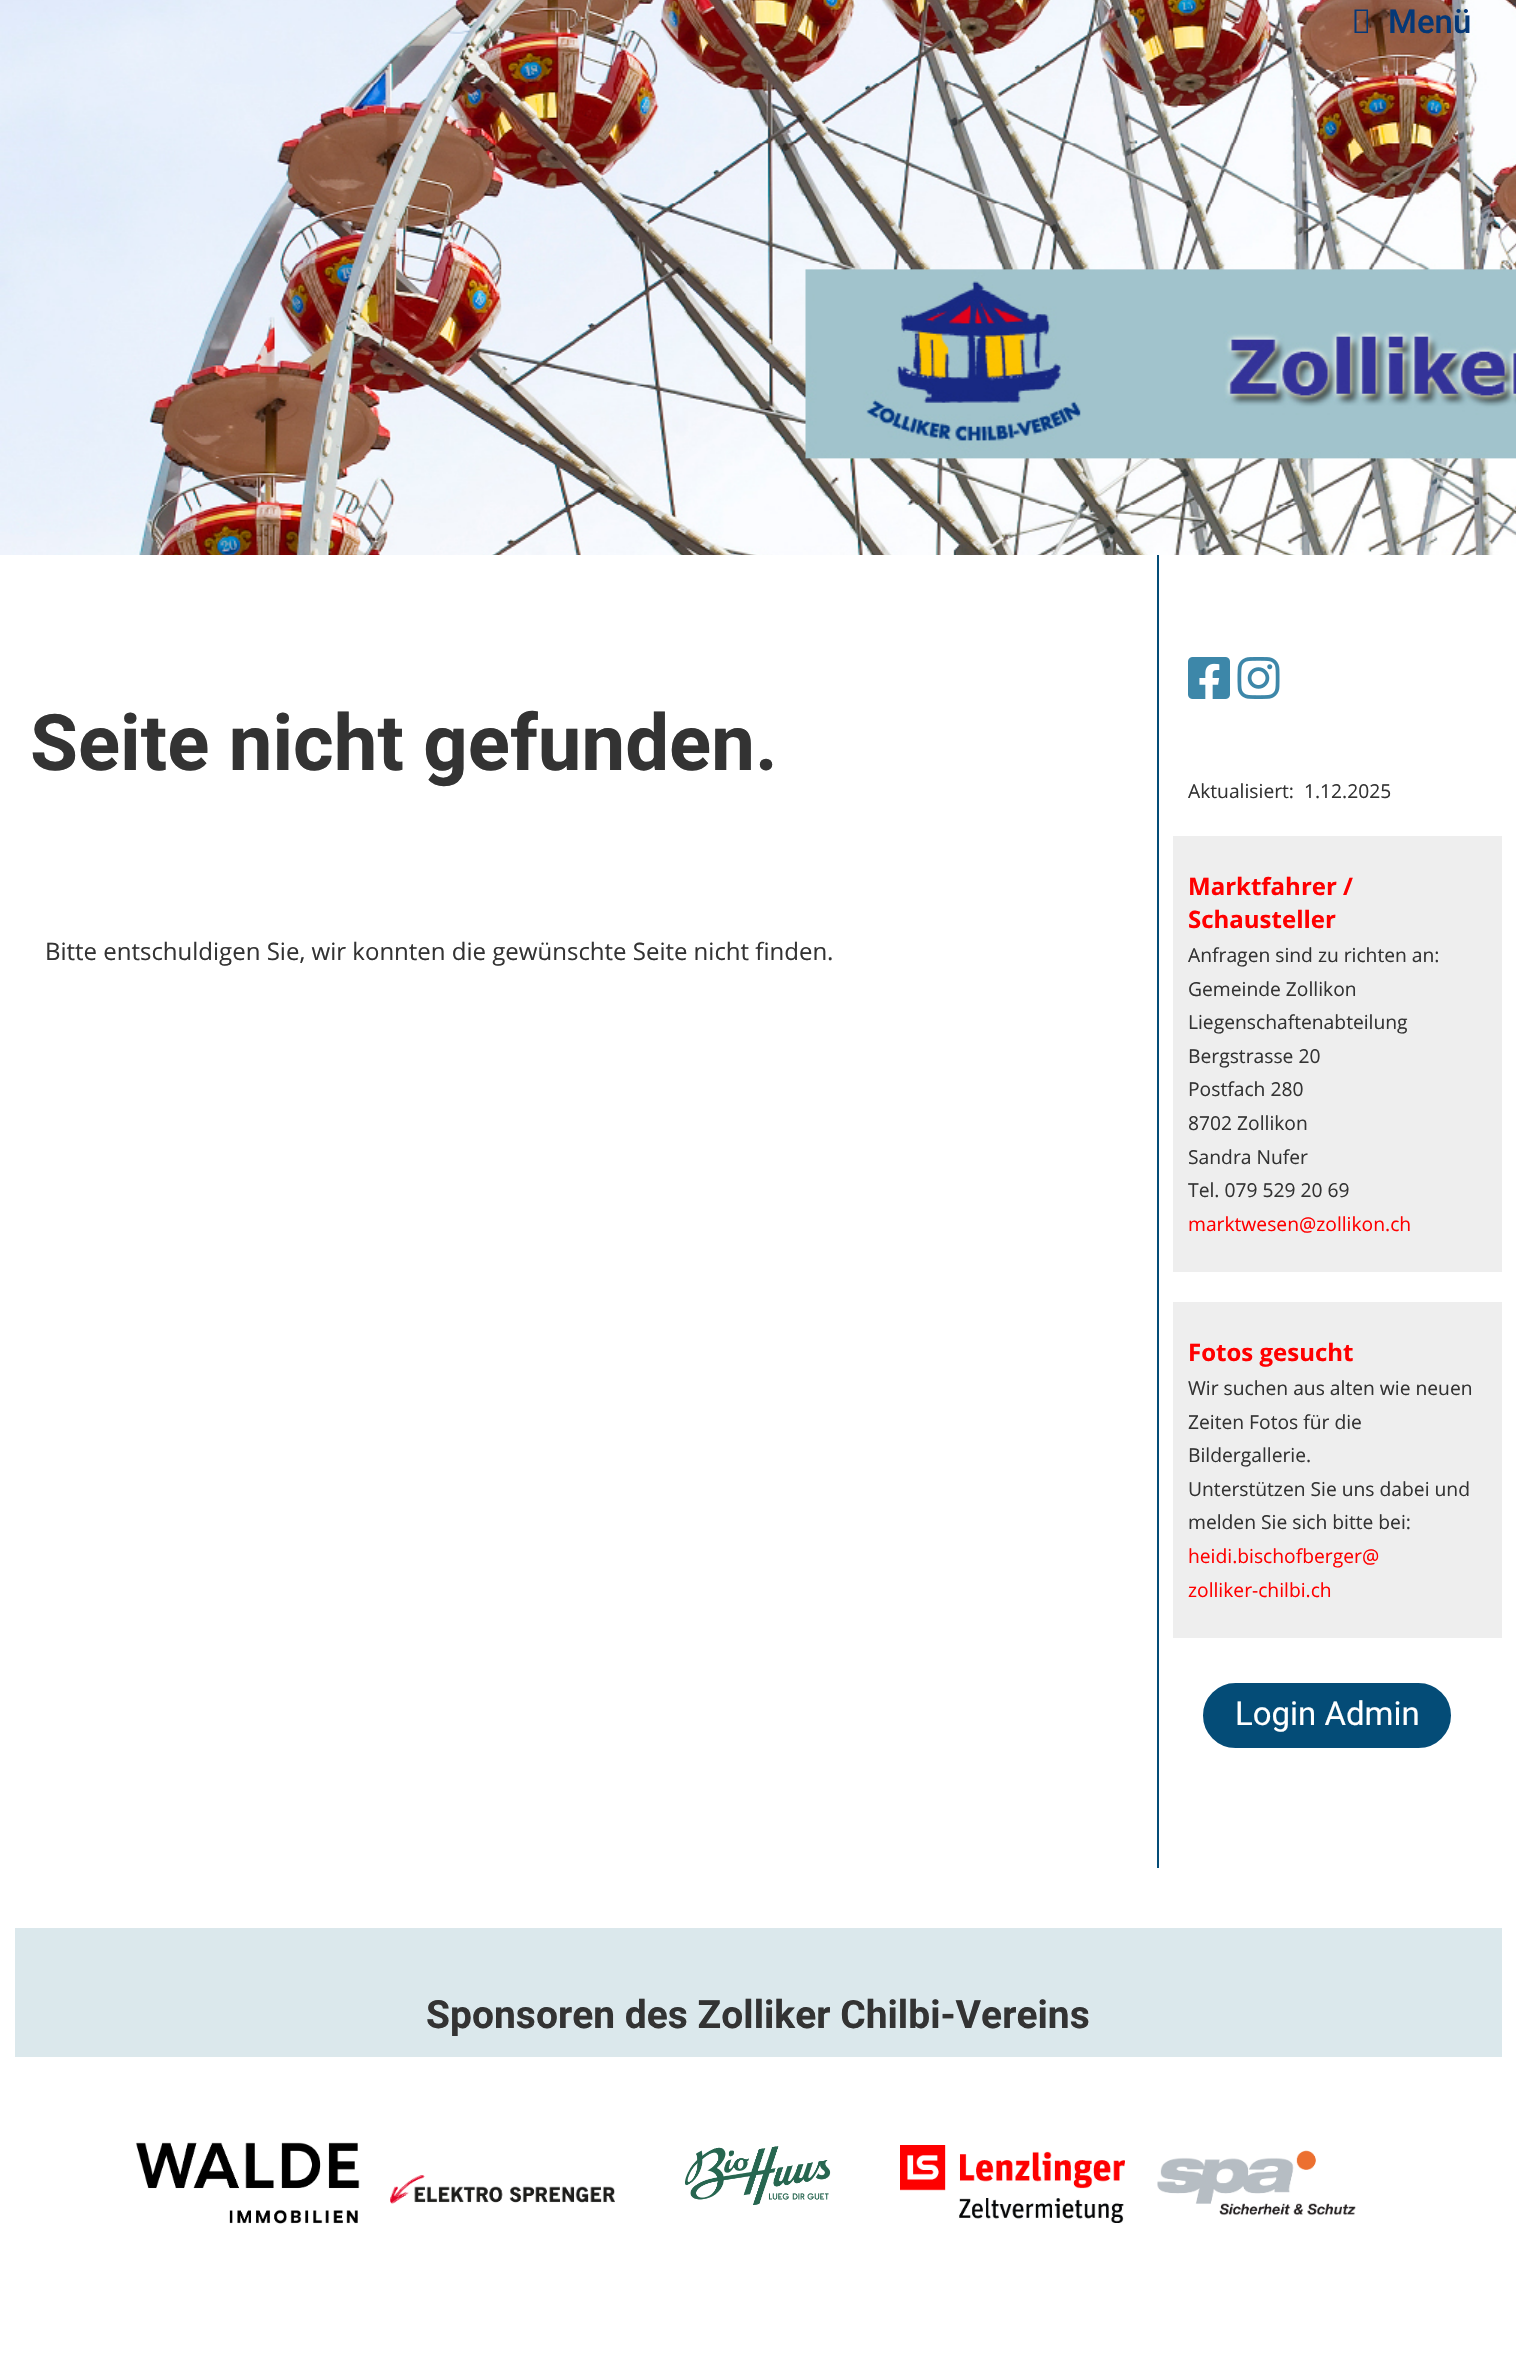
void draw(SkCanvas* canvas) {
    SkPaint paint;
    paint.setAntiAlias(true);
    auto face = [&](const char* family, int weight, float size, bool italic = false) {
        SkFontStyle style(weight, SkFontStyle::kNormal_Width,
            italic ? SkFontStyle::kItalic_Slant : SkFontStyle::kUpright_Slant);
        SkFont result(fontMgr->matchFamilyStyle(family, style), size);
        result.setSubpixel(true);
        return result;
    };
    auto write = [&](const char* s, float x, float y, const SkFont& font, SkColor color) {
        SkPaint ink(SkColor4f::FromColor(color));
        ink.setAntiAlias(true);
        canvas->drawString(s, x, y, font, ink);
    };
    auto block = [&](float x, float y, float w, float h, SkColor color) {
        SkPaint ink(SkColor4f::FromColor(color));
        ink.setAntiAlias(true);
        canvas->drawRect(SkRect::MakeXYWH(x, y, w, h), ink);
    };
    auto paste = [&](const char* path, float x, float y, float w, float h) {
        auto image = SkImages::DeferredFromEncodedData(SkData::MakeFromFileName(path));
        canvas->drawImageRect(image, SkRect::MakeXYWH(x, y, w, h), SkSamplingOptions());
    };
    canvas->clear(SK_ColorWHITE);
    paste("pic1.png", 0, 0, 1516, 555);
    paint.setColor(SkColorSetRGB(4, 56, 119));
    canvas->drawPath(SkPathBuilder().moveTo(1354.5f, 33).lineTo(1354.5f, 9.5f).lineTo(1368, 9.5f).lineTo(1368, 33).close().moveTo(1356.5f, 31.5f).lineTo(1366.5f, 31.5f).lineTo(1366.5f, 11).lineTo(1356.5f, 11).close().detach(), paint);
    auto kFont1 = face("Roboto", 500, 33);
    write("Menü", 1388, 33, kFont1, SkColorSetRGB(4, 56, 119));
    auto kFont2 = face("Roboto", 700, 78);
    write("Seite nicht gefunden.", 30, 770, kFont2, SkColorSetRGB(51, 51, 51));
    auto kFont3 = face("Open Sans", 400, 24);
    write("Bitte entschuldigen Sie, wir konnten die gewünschte Seite nicht finden.", 45, 960, kFont3, SkColorSetRGB(51, 51, 51));
    block(1157, 555, 2, 1313, SkColorSetRGB(4, 76, 119));
    paste("pic2.png", 1188, 657, 42, 42);
    paste("pic3.png", 1237, 657, 43, 42);
    auto kFont4 = face("Open Sans", 400, 19.25f);
    write("Aktualisiert:  1.12.2025", 1188, 798, kFont4, SkColorSetRGB(51, 51, 51));
    block(1173, 836, 329, 436, SkColorSetRGB(238, 238, 238));
    auto kFont5 = face("Open Sans", 700, 24);
    write("Marktfahrer /", 1188, 895, kFont5, SkColorSetRGB(255, 0, 0));
    write("Schausteller", 1188, 928, kFont5, SkColorSetRGB(255, 0, 0));
    write("Anfragen sind zu richten an:", 1188, 962, kFont4, SkColorSetRGB(51, 51, 51));
    write("Gemeinde Zollikon", 1188, 996, kFont4, SkColorSetRGB(51, 51, 51));
    write("Liegenschaftenabteilung", 1188, 1029, kFont4, SkColorSetRGB(51, 51, 51));
    write("Bergstrasse 20", 1188, 1063, kFont4, SkColorSetRGB(51, 51, 51));
    write("Postfach 280", 1188, 1096, kFont4, SkColorSetRGB(51, 51, 51));
    write("8702 Zollikon", 1188, 1130, kFont4, SkColorSetRGB(51, 51, 51));
    write("Sandra Nufer", 1188, 1164, kFont4, SkColorSetRGB(51, 51, 51));
    write("Tel. 079 529 20 69", 1188, 1197, kFont4, SkColorSetRGB(51, 51, 51));
    write("marktwesen@zollikon.ch", 1188, 1231, kFont4, SkColorSetRGB(255, 0, 0));
    block(1173, 1302, 329, 336, SkColorSetRGB(238, 238, 238));
    write("Fotos gesucht", 1188, 1361, kFont5, SkColorSetRGB(255, 0, 0));
    write("Wir suchen aus alten wie neuen", 1188, 1395, kFont4, SkColorSetRGB(51, 51, 51));
    write("Zeiten Fotos für die", 1188, 1429, kFont4, SkColorSetRGB(51, 51, 51));
    write("Bildergallerie.", 1188, 1462, kFont4, SkColorSetRGB(51, 51, 51));
    write("Unterstützen Sie uns dabei und", 1188, 1496, kFont4, SkColorSetRGB(51, 51, 51));
    write("melden Sie sich bitte bei:", 1188, 1529, kFont4, SkColorSetRGB(51, 51, 51));
    write("heidi.bischofberger@", 1188, 1563, kFont4, SkColorSetRGB(255, 0, 0));
    write("zolliker-chilbi.ch", 1188, 1597, kFont4, SkColorSetRGB(255, 0, 0));
    paint.setColor(SkColorSetRGB(4, 76, 119));
    canvas->drawRoundRect(SkRect::MakeXYWH(1204, 1684, 246, 63), 31.5f, 31.5f, paint);
    paint.setStyle(SkPaint::kStroke_Style);
    paint.setStrokeWidth(2);
    canvas->drawRoundRect(SkRect::MakeXYWH(1204, 1684, 246, 63), 31.5f, 31.5f, paint);
    auto kFont6 = face("Roboto", 400, 33);
    write("Login Admin", 1235, 1725, kFont6, SK_ColorWHITE);
    block(15, 1928, 1487, 129, SkColorSetRGB(219, 232, 236));
    auto kFont7 = face("Roboto", 700, 39);
    write("Sponsoren des Zolliker Chilbi-Vereins", 426, 2028, kFont7, SkColorSetRGB(51, 51, 51));
    paste("pic4.png", 135, 2142, 225, 82);
    paste("pic5.png", 390, 2175, 225, 29);
    paste("pic6.png", 684, 2146, 147, 59);
    paste("pic7.png", 900, 2145, 225, 78);
    paste("pic8.png", 1157, 2150, 199, 66);
}
